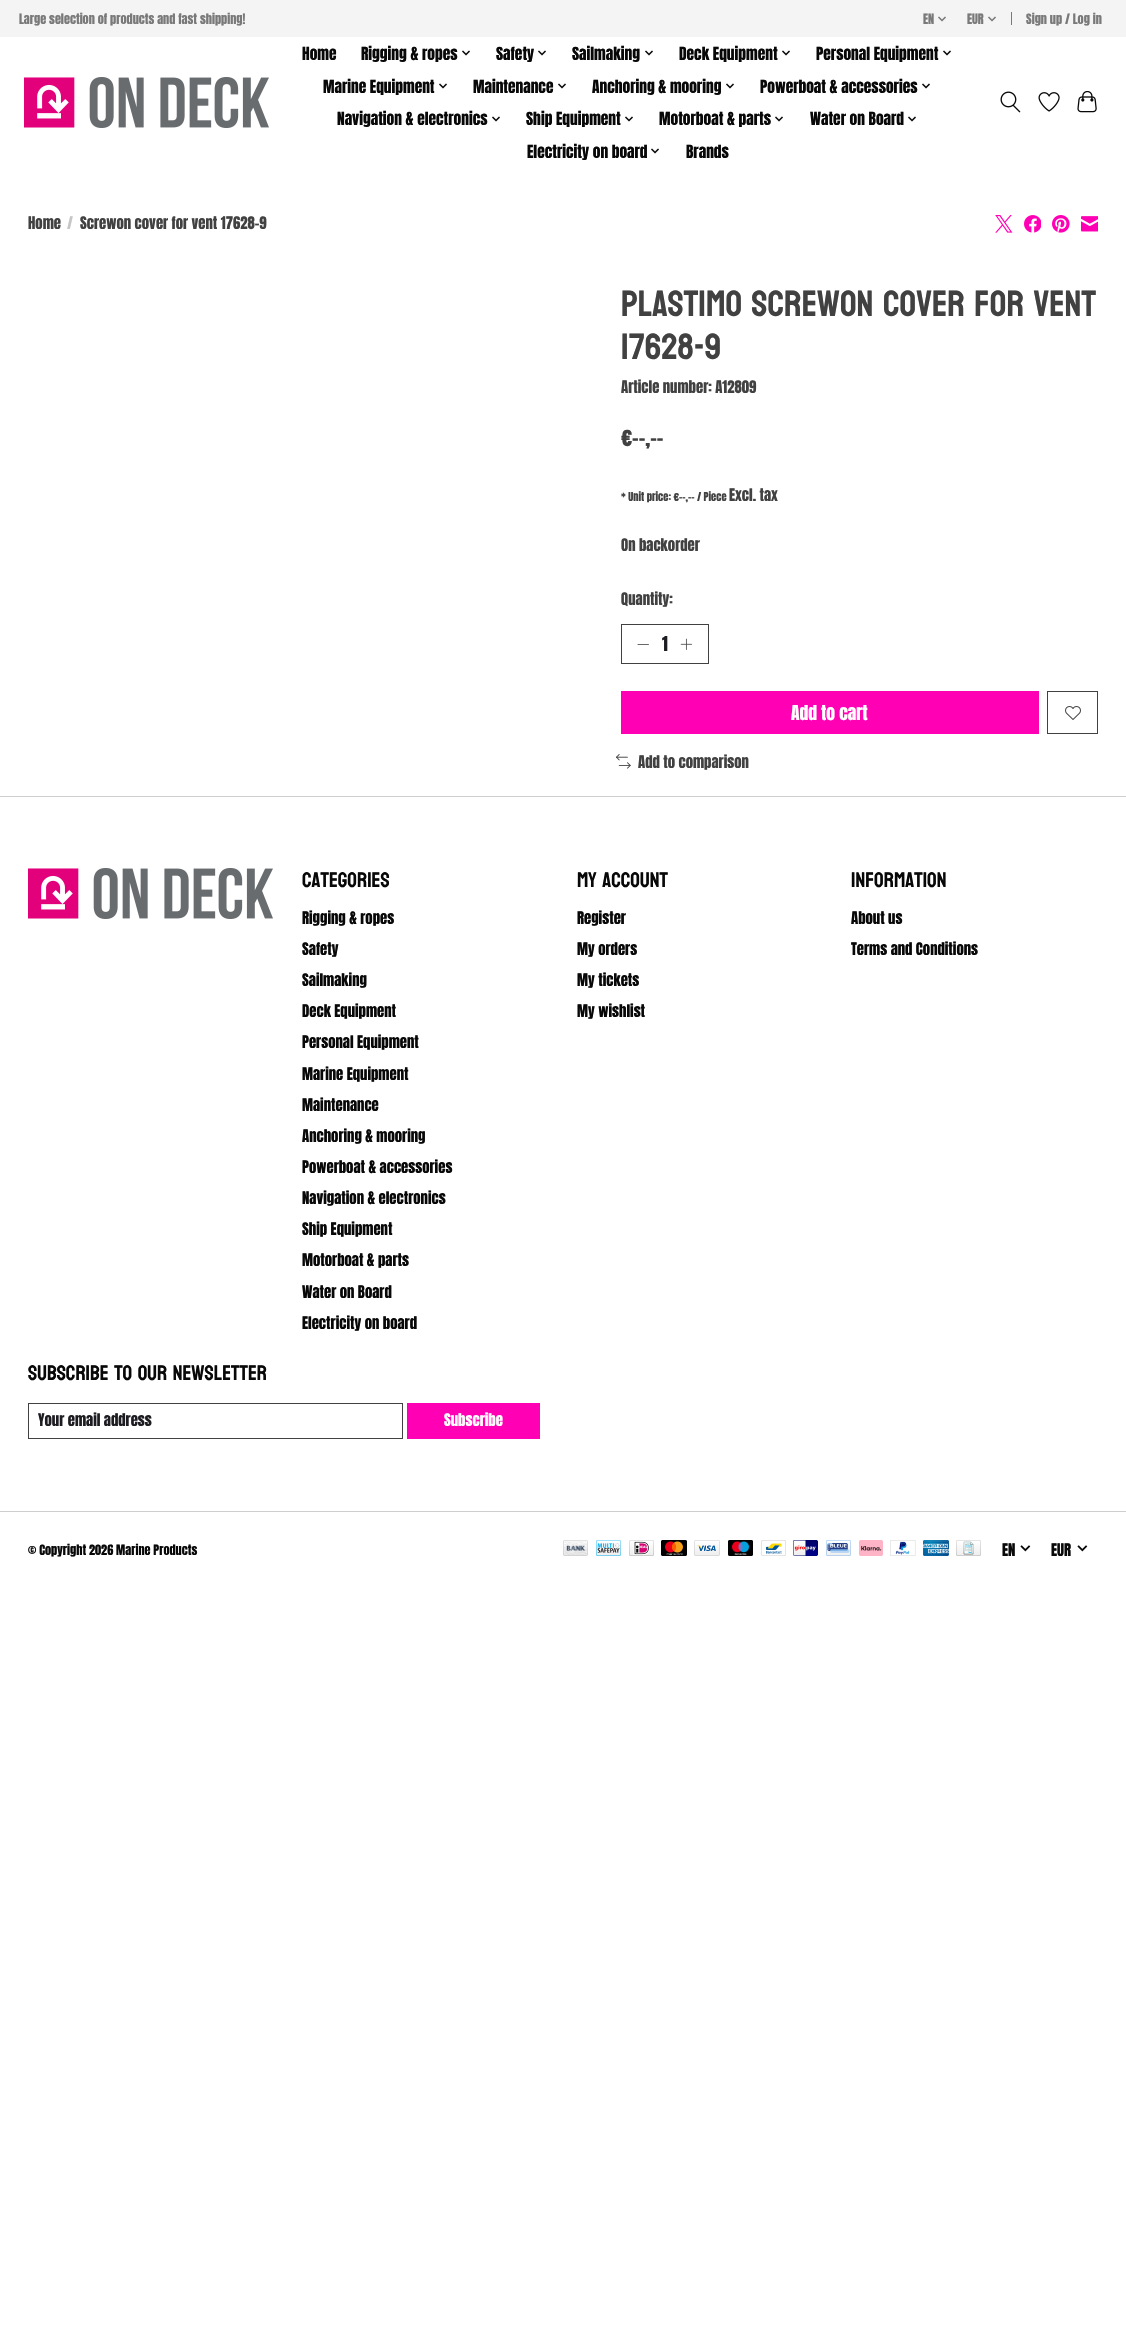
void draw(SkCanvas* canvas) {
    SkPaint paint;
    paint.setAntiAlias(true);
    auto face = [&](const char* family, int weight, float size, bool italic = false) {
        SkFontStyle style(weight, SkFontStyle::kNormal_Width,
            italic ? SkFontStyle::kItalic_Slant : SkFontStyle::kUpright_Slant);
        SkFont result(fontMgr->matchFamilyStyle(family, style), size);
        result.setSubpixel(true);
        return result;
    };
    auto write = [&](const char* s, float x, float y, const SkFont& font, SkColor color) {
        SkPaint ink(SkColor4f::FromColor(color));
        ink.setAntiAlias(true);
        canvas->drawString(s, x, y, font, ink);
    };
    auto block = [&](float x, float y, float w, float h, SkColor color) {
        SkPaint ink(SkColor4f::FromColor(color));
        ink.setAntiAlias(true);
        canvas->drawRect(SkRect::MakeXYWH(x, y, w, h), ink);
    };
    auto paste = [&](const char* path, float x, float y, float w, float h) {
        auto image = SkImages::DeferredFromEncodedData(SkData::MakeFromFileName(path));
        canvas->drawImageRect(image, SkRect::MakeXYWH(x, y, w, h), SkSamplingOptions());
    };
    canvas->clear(SK_ColorWHITE);
    block(0, 0, 1126, 37, SkColorSetRGB(244, 244, 244));
    auto kFont1 = face("Anton", 400, 12.25f);
    write("Large selection of products and fast shipping!", 19, 24, kFont1, SkColorSetRGB(121, 121, 121));
    write("EN", 923, 24, kFont1, SkColorSetRGB(121, 121, 121));
    paste("pic1.png", 938, 16, 8, 6);
    write("EUR", 967, 24, kFont1, SkColorSetRGB(121, 121, 121));
    paste("pic1.png", 988, 16, 8, 6);
    block(1011, 12, 1, 13, SkColorSetRGB(121, 121, 121));
    write("Sign up / Log in", 1026, 24, kFont1, SkColorSetRGB(121, 121, 121));
    paste("pic2.png", 24, 77, 245, 51);
    auto kFont2 = face("Anton", 400, 15.4f);
    write("Home", 302, 60, kFont2, SkColorSetRGB(8, 8, 8));
    write("Rigging & ropes", 361, 60, kFont2, SkColorSetRGB(8, 8, 8));
    paste("pic3.png", 462, 50, 8, 6);
    write("Safety", 496, 60, kFont2, SkColorSetRGB(8, 8, 8));
    paste("pic3.png", 538, 50, 8, 6);
    write("Sailmaking", 572, 60, kFont2, SkColorSetRGB(8, 8, 8));
    paste("pic3.png", 645, 50, 8, 6);
    write("Deck Equipment", 679, 60, kFont2, SkColorSetRGB(8, 8, 8));
    paste("pic3.png", 782, 50, 8, 6);
    write("Personal Equipment", 816, 60, kFont2, SkColorSetRGB(8, 8, 8));
    paste("pic3.png", 943, 50, 8, 6);
    write("Marine Equipment", 323, 93, kFont2, SkColorSetRGB(8, 8, 8));
    paste("pic3.png", 439, 83, 8, 6);
    write("Maintenance", 473, 93, kFont2, SkColorSetRGB(8, 8, 8));
    paste("pic3.png", 558, 83, 8, 6);
    write("Anchoring & mooring", 592, 93, kFont2, SkColorSetRGB(8, 8, 8));
    paste("pic3.png", 726, 83, 8, 6);
    write("Powerboat & accessories", 760, 93, kFont2, SkColorSetRGB(8, 8, 8));
    paste("pic3.png", 922, 83, 8, 6);
    write("Navigation & electronics", 337, 125, kFont2, SkColorSetRGB(8, 8, 8));
    paste("pic3.png", 492, 116, 8, 6);
    write("Ship Equipment", 526, 125, kFont2, SkColorSetRGB(8, 8, 8));
    paste("pic3.png", 625, 116, 8, 6);
    write("Motorboat & parts", 659, 125, kFont2, SkColorSetRGB(8, 8, 8));
    paste("pic3.png", 775, 116, 8, 6);
    write("Water on Board", 810, 125, kFont2, SkColorSetRGB(8, 8, 8));
    paste("pic3.png", 908, 116, 8, 6);
    write("Electricity on board", 527, 158, kFont2, SkColorSetRGB(8, 8, 8));
    paste("pic3.png", 651, 148, 8, 6);
    write("Brands", 686, 158, kFont2, SkColorSetRGB(8, 8, 8));
    paste("pic4.png", 1000, 91, 21, 22);
    paste("pic5.png", 1038, 92, 22, 20);
    paste("pic6.png", 1077, 91, 20, 22);
    auto kFont3 = face("Anton", 400, 14.7f);
    write("Home", 28, 229, kFont3, SkColorSetRGB(65, 65, 65));
    write("/", 67, 229, kFont3, SkColorSetRGB(198, 198, 198));
    write("Screwon cover for vent 17628-9", 80, 229, kFont3, SkColorSetRGB(65, 65, 65));
    paste("pic7.png", 995, 215, 18, 18);
    paste("pic8.png", 1024, 215, 17, 18);
    paste("pic9.png", 1052, 215, 18, 18);
    paste("pic10.png", 1081, 216, 17, 16);
    auto kFont4 = face("Koulen", 400, 36.5f);
    write("Plastimo Screwon cover for vent", 621, 316, kFont4, SkColorSetRGB(65, 65, 65));
    write("17628-9", 621, 359, kFont4, SkColorSetRGB(65, 65, 65));
    write("Article number: A12809", 621, 393, kFont3, SkColorSetRGB(65, 65, 65));
    auto kFont5 = face("Anton", 400, 21.1f);
    write("€--,--", 621, 446, kFont5, SkColorSetRGB(65, 65, 65));
    auto kFont6 = face("Anton", 400, 10.5f);
    write("* Unit price: €--,-- / Piece", 621, 501, kFont6, SkColorSetRGB(65, 65, 65));
    write("Excl. tax", 729, 501, kFont3, SkColorSetRGB(65, 65, 65));
    write("On backorder", 621, 551, kFont3, SkColorSetRGB(65, 65, 65));
    write("Quantity:", 621, 605, kFont3, SkColorSetRGB(65, 65, 65));
    paint.setStyle(SkPaint::kStroke_Style);
    paint.setStrokeWidth(1);
    paint.setColor(SkColorSetRGB(65, 65, 65));
    canvas->drawRect(SkRect::MakeXYWH(621.5f, 624.5f, 87, 39), paint);
    paint.setStrokeWidth(0.8f);
    paint.setStrokeCap(SkPaint::kRound_Cap);
    paint.setStrokeJoin(SkPaint::kRound_Join);
    canvas->drawPath(SkPathBuilder().moveTo(638, 644.5f).lineTo(648.5f, 644.5f).detach(), paint);
    auto kFont7 = face("Anton", 400, 17.5f);
    write("1", 662, 651, kFont7, SkColorSetRGB(28, 28, 33));
    paste("pic11.png", 680, 638, 12, 12);
    block(621, 691, 418, 43, SkColorSetRGB(255, 0, 181));
    write("Add to cart", 791, 720, kFont7, SK_ColorWHITE);
    paint.setStrokeWidth(1);
    paint.setStrokeCap(SkPaint::kButt_Cap);
    paint.setStrokeJoin(SkPaint::kMiter_Join);
    canvas->drawRect(SkRect::MakeXYWH(1047.5f, 691.5f, 50, 42), paint);
    paste("pic12.png", 1065, 706, 16, 14);
    paste("pic13.png", 616, 754, 15, 15);
    write("Add to comparison", 638, 768, kFont3, SkColorSetRGB(65, 65, 65));
    block(0, 796, 1126, 1, SkColorSetRGB(206, 206, 206));
    paste("pic2.png", 28, 868, 245, 51);
    auto kFont8 = face("Koulen", 400, 21.1f);
    write("Categories", 302, 887, kFont8, SkColorSetRGB(8, 8, 8));
    write("Rigging & ropes", 302, 924, kFont3, SkColorSetRGB(8, 8, 8));
    write("Safety", 302, 955, kFont3, SkColorSetRGB(8, 8, 8));
    write("Sailmaking", 302, 986, kFont3, SkColorSetRGB(8, 8, 8));
    write("Deck Equipment", 302, 1017, kFont3, SkColorSetRGB(8, 8, 8));
    write("Personal Equipment", 302, 1048, kFont3, SkColorSetRGB(8, 8, 8));
    write("Marine Equipment", 302, 1080, kFont3, SkColorSetRGB(8, 8, 8));
    write("Maintenance", 302, 1111, kFont3, SkColorSetRGB(8, 8, 8));
    write("Anchoring & mooring", 302, 1142, kFont3, SkColorSetRGB(8, 8, 8));
    write("Powerboat & accessories", 302, 1173, kFont3, SkColorSetRGB(8, 8, 8));
    write("Navigation & electronics", 302, 1204, kFont3, SkColorSetRGB(8, 8, 8));
    write("Ship Equipment", 302, 1235, kFont3, SkColorSetRGB(8, 8, 8));
    write("Motorboat & parts", 302, 1266, kFont3, SkColorSetRGB(8, 8, 8));
    write("Water on Board", 302, 1298, kFont3, SkColorSetRGB(8, 8, 8));
    write("Electricity on board", 302, 1329, kFont3, SkColorSetRGB(8, 8, 8));
    write("My account", 577, 887, kFont8, SkColorSetRGB(8, 8, 8));
    write("Register", 577, 924, kFont3, SkColorSetRGB(8, 8, 8));
    write("My orders", 577, 955, kFont3, SkColorSetRGB(8, 8, 8));
    write("My tickets", 577, 986, kFont3, SkColorSetRGB(8, 8, 8));
    write("My wishlist", 577, 1017, kFont3, SkColorSetRGB(8, 8, 8));
    write("Information", 851, 887, kFont8, SkColorSetRGB(8, 8, 8));
    write("About us", 851, 924, kFont3, SkColorSetRGB(8, 8, 8));
    write("Terms and Conditions", 851, 955, kFont3, SkColorSetRGB(8, 8, 8));
    write("Subscribe to our newsletter", 28, 1380, kFont8, SkColorSetRGB(8, 8, 8));
    canvas->drawRect(SkRect::MakeXYWH(28.5f, 1403.5f, 374, 35), paint);
    write("Your email address", 38, 1426, kFont3, SkColorSetRGB(28, 28, 33));
    block(407, 1403, 133, 36, SkColorSetRGB(255, 0, 181));
    write("Subscribe", 444, 1426, kFont3, SK_ColorWHITE);
    block(0, 1511, 1126, 1, SkColorSetRGB(206, 206, 206));
    write("© Copyright 2026 Marine Products", 28, 1555, kFont1, SkColorSetRGB(8, 8, 8));
    paste("pic14.png", 563, 1540, 25, 16);
    paste("pic15.png", 596, 1540, 25, 16);
    paste("pic16.png", 629, 1540, 25, 16);
    paste("pic17.png", 661, 1540, 26, 16);
    paste("pic18.png", 694, 1540, 26, 16);
    paste("pic19.png", 728, 1540, 25, 16);
    paste("pic20.png", 761, 1540, 25, 16);
    paste("pic21.png", 793, 1540, 25, 16);
    paste("pic22.png", 826, 1540, 25, 16);
    paste("pic23.png", 859, 1540, 24, 16);
    paste("pic24.png", 890, 1540, 26, 16);
    paste("pic25.png", 923, 1540, 26, 16);
    paste("pic26.png", 956, 1540, 25, 16);
    write("EN", 1002, 1556, kFont3, SkColorSetRGB(8, 8, 8));
    paste("pic27.png", 1020, 1545, 11, 7);
    write("EUR", 1051, 1556, kFont3, SkColorSetRGB(8, 8, 8));
    paste("pic27.png", 1077, 1545, 11, 7);
}
